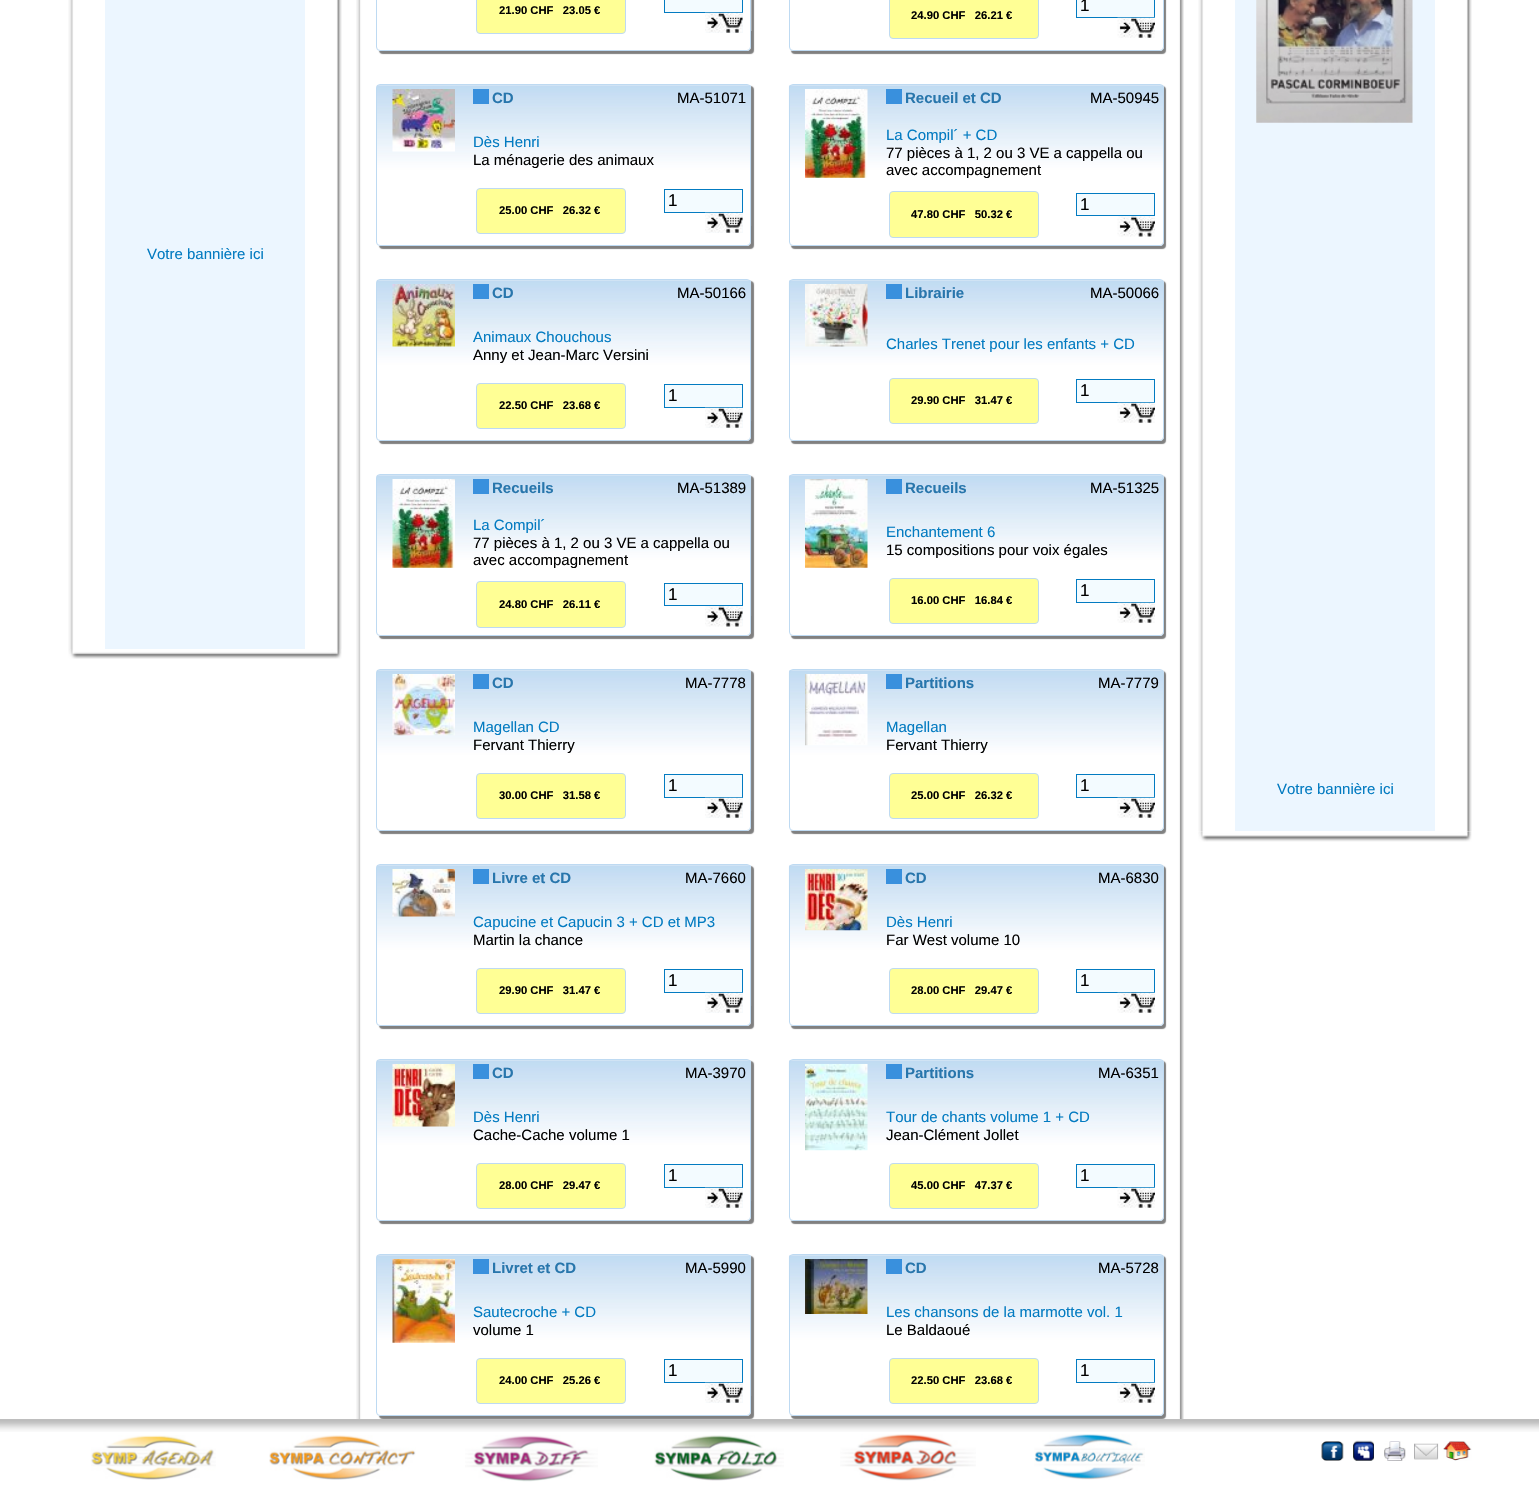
void draw(SkCanvas* canvas) {
    SkPaint paint;
    paint.setAntiAlias(true);
    auto face = [&](const char* family, int weight, float size, bool italic = false) {
        SkFontStyle style(weight, SkFontStyle::kNormal_Width,
            italic ? SkFontStyle::kItalic_Slant : SkFontStyle::kUpright_Slant);
        SkFont result(fontMgr->matchFamilyStyle(family, style), size);
        result.setSubpixel(true);
        return result;
    };
    auto write = [&](const char* s, float x, float y, const SkFont& font, SkColor color) {
        SkPaint ink(SkColor4f::FromColor(color));
        ink.setAntiAlias(true);
        canvas->drawString(s, x, y, font, ink);
    };
    auto block = [&](float x, float y, float w, float h, SkColor color) {
        SkPaint ink(SkColor4f::FromColor(color));
        ink.setAntiAlias(true);
        canvas->drawRect(SkRect::MakeXYWH(x, y, w, h), ink);
    };
    auto paste = [&](const char* path, float x, float y, float w, float h) {
        auto image = SkImages::DeferredFromEncodedData(SkData::MakeFromFileName(path));
        canvas->drawImageRect(image, SkRect::MakeXYWH(x, y, w, h), SkSamplingOptions());
    };
    canvas->clear(SK_ColorWHITE);
    paste("pic1.png", 68, 0, 274, 649);
    block(105, 0, 200, 649, SkColorSetRGB(236, 246, 255));
    auto kFont1 = face("Liberation Sans", 400, 15);
    write("Votre bannière ici", 147, 259, kFont1, SkColorSetRGB(3, 123, 193));
    paste("pic2.png", 68, 649, 274, 10);
    paste("pic3.png", 356, 0, 828, 1419);
    canvas->save();
    canvas->clipPath(SkPathBuilder(SkPathFillType::kEvenOdd).moveTo(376, 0).lineTo(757, 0).lineTo(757, 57).lineTo(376, 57).close().moveTo(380, -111).lineTo(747, -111).cubicTo(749, -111, 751, -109, 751, -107).lineTo(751, 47).cubicTo(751, 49, 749, 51, 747, 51).lineTo(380, 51).cubicTo(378, 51, 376, 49, 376, 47).lineTo(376, -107).cubicTo(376, -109, 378, -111, 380, -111).close().detach(), true);
    paint.setColor(SkColorSetRGB(128, 128, 128));
    paint.setMaskFilter(SkMaskFilter::MakeBlur(kNormal_SkBlurStyle, 0.5f));
    canvas->drawRoundRect(SkRect::MakeXYWH(379, -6, 375, 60), 4, 4, paint);
    paint.setMaskFilter(nullptr);
    canvas->restore();
    block(751, 0, 1, 31, SkColorSetRGB(166, 166, 166));
    paint.setStyle(SkPaint::kStroke_Style);
    paint.setStrokeWidth(1);
    paint.setColor(SkColorSetRGB(190, 218, 242));
    canvas->drawRoundRect(SkRect::MakeXYWH(376.5f, -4.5f, 374, 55), 3.5f, 3.5f, paint);
    paint.setStyle(SkPaint::kFill_Style);
    paint.setColor(SkColorSetRGB(255, 255, 149));
    canvas->drawRoundRect(SkRect::MakeXYWH(476.5f, -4.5f, 149, 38), 3.5f, 3.5f, paint);
    paint.setStyle(SkPaint::kStroke_Style);
    paint.setColor(SkColorSetRGB(190, 218, 242));
    canvas->drawRoundRect(SkRect::MakeXYWH(476.5f, -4.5f, 149, 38), 3.5f, 3.5f, paint);
    auto kFont2 = face("Liberation Sans", 700, 11.25f);
    write("21.90 CHF   23.05 €", 499, 14, kFont2, SK_ColorBLACK);
    paint.setStyle(SkPaint::kFill_Style);
    paint.setColor(SkColorSetRGB(243, 251, 255));
    canvas->drawRect(SkRect::MakeXYWH(664.5f, -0.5f, 78, 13), paint);
    paint.setStyle(SkPaint::kStroke_Style);
    paint.setColor(SkColorSetRGB(3, 123, 193));
    canvas->drawRect(SkRect::MakeXYWH(664.5f, -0.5f, 78, 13), paint);
    block(705, 13, 38, 20, SkColorSetRGB(243, 251, 255));
    paste("pic4.png", 705, 12, 38, 21);
    canvas->save();
    canvas->clipPath(SkPathBuilder(SkPathFillType::kEvenOdd).moveTo(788, 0).lineTo(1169, 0).lineTo(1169, 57).lineTo(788, 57).close().moveTo(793, -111).lineTo(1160, -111).cubicTo(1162, -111, 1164, -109, 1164, -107).lineTo(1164, 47).cubicTo(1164, 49, 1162, 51, 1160, 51).lineTo(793, 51).cubicTo(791, 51, 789, 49, 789, 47).lineTo(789, -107).cubicTo(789, -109, 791, -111, 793, -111).close().detach(), true);
    paint.setStyle(SkPaint::kFill_Style);
    paint.setColor(SkColorSetRGB(128, 128, 128));
    paint.setMaskFilter(SkMaskFilter::MakeBlur(kNormal_SkBlurStyle, 0.5f));
    canvas->drawRoundRect(SkRect::MakeXYWH(791, -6, 375, 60), 4, 4, paint);
    paint.setMaskFilter(nullptr);
    canvas->restore();
    paint.setStyle(SkPaint::kStroke_Style);
    paint.setColor(SkColorSetRGB(190, 218, 242));
    canvas->drawRoundRect(SkRect::MakeXYWH(789.5f, -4.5f, 374, 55), 3.5f, 3.5f, paint);
    paint.setStyle(SkPaint::kFill_Style);
    paint.setColor(SkColorSetRGB(243, 251, 255));
    canvas->drawRect(SkRect::MakeXYWH(1076.5f, -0.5f, 78, 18), paint);
    paint.setStyle(SkPaint::kStroke_Style);
    paint.setColor(SkColorSetRGB(3, 123, 193));
    canvas->drawRect(SkRect::MakeXYWH(1076.5f, -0.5f, 78, 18), paint);
    auto kFont3 = face("Liberation Sans", 400, 17);
    write("1", 1080, 11, kFont3, SK_ColorBLACK);
    paste("pic5.png", 1117, 17, 38, 21);
    paint.setStyle(SkPaint::kFill_Style);
    paint.setColor(SkColorSetRGB(255, 255, 149));
    canvas->drawRoundRect(SkRect::MakeXYWH(889.5f, -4.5f, 149, 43), 3.5f, 3.5f, paint);
    paint.setStyle(SkPaint::kStroke_Style);
    paint.setColor(SkColorSetRGB(190, 218, 242));
    canvas->drawRoundRect(SkRect::MakeXYWH(889.5f, -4.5f, 149, 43), 3.5f, 3.5f, paint);
    write("24.90 CHF   26.21 €", 911, 19, kFont2, SK_ColorBLACK);
    canvas->save();
    canvas->clipPath(SkPathBuilder(SkPathFillType::kEvenOdd).moveTo(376, 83).lineTo(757, 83).lineTo(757, 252).lineTo(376, 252).close().moveTo(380, 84).lineTo(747, 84).cubicTo(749, 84, 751, 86, 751, 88).lineTo(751, 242).cubicTo(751, 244, 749, 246, 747, 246).lineTo(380, 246).cubicTo(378, 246, 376, 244, 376, 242).lineTo(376, 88).cubicTo(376, 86, 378, 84, 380, 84).close().detach(), true);
    paint.setStyle(SkPaint::kFill_Style);
    paint.setColor(SkColorSetRGB(128, 128, 128));
    paint.setMaskFilter(SkMaskFilter::MakeBlur(kNormal_SkBlurStyle, 0.5f));
    canvas->drawRoundRect(SkRect::MakeXYWH(379, 86, 375, 163), 4, 4, paint);
    paint.setMaskFilter(nullptr);
    canvas->restore();
    paste("pic6.png", 376, 85, 376, 141);
    paint.setStyle(SkPaint::kStroke_Style);
    paint.setColor(SkColorSetRGB(190, 218, 242));
    canvas->drawRoundRect(SkRect::MakeXYWH(376.5f, 84.5f, 374, 161), 3.5f, 3.5f, paint);
    paste("pic7.png", 392, 89, 63, 63);
    block(473, 89, 16, 15, SkColorSetRGB(57, 144, 221));
    auto kFont4 = face("Liberation Sans", 700, 15);
    write("CD", 492, 103, kFont4, SkColorSetRGB(40, 118, 172));
    write("MA-51071", 677, 103, kFont1, SK_ColorBLACK);
    write("Dès Henri", 473, 147, kFont1, SkColorSetRGB(3, 123, 193));
    write("La ménagerie des animaux", 473, 165, kFont1, SK_ColorBLACK);
    paint.setStyle(SkPaint::kFill_Style);
    paint.setColor(SkColorSetRGB(243, 251, 255));
    canvas->drawRect(SkRect::MakeXYWH(664.5f, 189.5f, 78, 23), paint);
    paint.setStyle(SkPaint::kStroke_Style);
    paint.setColor(SkColorSetRGB(3, 123, 193));
    canvas->drawRect(SkRect::MakeXYWH(664.5f, 189.5f, 78, 23), paint);
    write("1", 668, 206, kFont3, SK_ColorBLACK);
    block(705, 213, 38, 20, SkColorSetRGB(243, 251, 255));
    paste("pic4.png", 705, 212, 38, 21);
    paint.setStyle(SkPaint::kFill_Style);
    paint.setColor(SkColorSetRGB(255, 255, 149));
    canvas->drawRoundRect(SkRect::MakeXYWH(476.5f, 188.5f, 149, 45), 3.5f, 3.5f, paint);
    paint.setStyle(SkPaint::kStroke_Style);
    paint.setColor(SkColorSetRGB(190, 218, 242));
    canvas->drawRoundRect(SkRect::MakeXYWH(476.5f, 188.5f, 149, 45), 3.5f, 3.5f, paint);
    write("25.00 CHF   26.32 €", 499, 214, kFont2, SK_ColorBLACK);
    canvas->save();
    canvas->clipPath(SkPathBuilder(SkPathFillType::kEvenOdd).moveTo(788, 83).lineTo(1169, 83).lineTo(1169, 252).lineTo(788, 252).close().moveTo(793, 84).lineTo(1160, 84).cubicTo(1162, 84, 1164, 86, 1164, 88).lineTo(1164, 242).cubicTo(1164, 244, 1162, 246, 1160, 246).lineTo(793, 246).cubicTo(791, 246, 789, 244, 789, 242).lineTo(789, 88).cubicTo(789, 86, 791, 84, 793, 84).close().detach(), true);
    paint.setStyle(SkPaint::kFill_Style);
    paint.setColor(SkColorSetRGB(128, 128, 128));
    paint.setMaskFilter(SkMaskFilter::MakeBlur(kNormal_SkBlurStyle, 0.5f));
    canvas->drawRoundRect(SkRect::MakeXYWH(791, 86, 375, 163), 4, 4, paint);
    paint.setMaskFilter(nullptr);
    canvas->restore();
    paste("pic8.png", 788, 85, 376, 142);
    paint.setStyle(SkPaint::kStroke_Style);
    paint.setColor(SkColorSetRGB(190, 218, 242));
    canvas->drawRoundRect(SkRect::MakeXYWH(789.5f, 84.5f, 374, 161), 3.5f, 3.5f, paint);
    paste("pic9.png", 805, 89, 63, 89);
    block(886, 89, 16, 15, SkColorSetRGB(57, 144, 221));
    write("Recueil et CD", 905, 103, kFont4, SkColorSetRGB(40, 118, 172));
    write("MA-50945", 1090, 103, kFont1, SK_ColorBLACK);
    write("La Compil´ + CD", 886, 140, kFont1, SkColorSetRGB(3, 123, 193));
    write("77 pièces à 1, 2 ou 3 VE a cappella ou", 886, 158, kFont1, SK_ColorBLACK);
    write("avec accompagnement", 886, 175, kFont1, SK_ColorBLACK);
    paint.setStyle(SkPaint::kFill_Style);
    paint.setColor(SkColorSetRGB(243, 251, 255));
    canvas->drawRect(SkRect::MakeXYWH(1076.5f, 193.5f, 78, 22), paint);
    paint.setStyle(SkPaint::kStroke_Style);
    paint.setColor(SkColorSetRGB(3, 123, 193));
    canvas->drawRect(SkRect::MakeXYWH(1076.5f, 193.5f, 78, 22), paint);
    write("1", 1080, 210, kFont3, SK_ColorBLACK);
    block(1118, 216, 37, 1, SkColorSetRGB(243, 251, 255));
    paste("pic10.png", 1117, 216, 38, 21);
    paint.setStyle(SkPaint::kFill_Style);
    paint.setColor(SkColorSetRGB(255, 255, 149));
    canvas->drawRoundRect(SkRect::MakeXYWH(889.5f, 191.5f, 149, 46), 3.5f, 3.5f, paint);
    paint.setStyle(SkPaint::kStroke_Style);
    paint.setColor(SkColorSetRGB(190, 218, 242));
    canvas->drawRoundRect(SkRect::MakeXYWH(889.5f, 191.5f, 149, 46), 3.5f, 3.5f, paint);
    write("47.80 CHF   50.32 €", 911, 218, kFont2, SK_ColorBLACK);
    canvas->save();
    canvas->clipPath(SkPathBuilder(SkPathFillType::kEvenOdd).moveTo(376, 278).lineTo(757, 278).lineTo(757, 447).lineTo(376, 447).close().moveTo(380, 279).lineTo(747, 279).cubicTo(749, 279, 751, 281, 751, 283).lineTo(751, 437).cubicTo(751, 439, 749, 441, 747, 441).lineTo(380, 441).cubicTo(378, 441, 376, 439, 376, 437).lineTo(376, 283).cubicTo(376, 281, 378, 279, 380, 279).close().detach(), true);
    paint.setStyle(SkPaint::kFill_Style);
    paint.setColor(SkColorSetRGB(128, 128, 128));
    paint.setMaskFilter(SkMaskFilter::MakeBlur(kNormal_SkBlurStyle, 0.5f));
    canvas->drawRoundRect(SkRect::MakeXYWH(379, 281, 375, 163), 4, 4, paint);
    paint.setMaskFilter(nullptr);
    canvas->restore();
    paste("pic11.png", 376, 280, 376, 141);
    paint.setStyle(SkPaint::kStroke_Style);
    paint.setColor(SkColorSetRGB(190, 218, 242));
    canvas->drawRoundRect(SkRect::MakeXYWH(376.5f, 279.5f, 374, 161), 3.5f, 3.5f, paint);
    paste("pic12.png", 392, 284, 63, 63);
    block(473, 284, 16, 15, SkColorSetRGB(57, 144, 221));
    write("CD", 492, 298, kFont4, SkColorSetRGB(40, 118, 172));
    write("MA-50166", 677, 298, kFont1, SK_ColorBLACK);
    write("Animaux Chouchous", 473, 342, kFont1, SkColorSetRGB(3, 123, 193));
    write("Anny et Jean-Marc Versini", 473, 360, kFont1, SK_ColorBLACK);
    paint.setStyle(SkPaint::kFill_Style);
    paint.setColor(SkColorSetRGB(243, 251, 255));
    canvas->drawRect(SkRect::MakeXYWH(664.5f, 384.5f, 78, 23), paint);
    paint.setStyle(SkPaint::kStroke_Style);
    paint.setColor(SkColorSetRGB(3, 123, 193));
    canvas->drawRect(SkRect::MakeXYWH(664.5f, 384.5f, 78, 23), paint);
    write("1", 668, 401, kFont3, SK_ColorBLACK);
    block(705, 408, 38, 20, SkColorSetRGB(243, 251, 255));
    paste("pic4.png", 705, 407, 38, 21);
    paint.setStyle(SkPaint::kFill_Style);
    paint.setColor(SkColorSetRGB(255, 255, 149));
    canvas->drawRoundRect(SkRect::MakeXYWH(476.5f, 383.5f, 149, 45), 3.5f, 3.5f, paint);
    paint.setStyle(SkPaint::kStroke_Style);
    paint.setColor(SkColorSetRGB(190, 218, 242));
    canvas->drawRoundRect(SkRect::MakeXYWH(476.5f, 383.5f, 149, 45), 3.5f, 3.5f, paint);
    write("22.50 CHF   23.68 €", 499, 409, kFont2, SK_ColorBLACK);
    canvas->save();
    canvas->clipPath(SkPathBuilder(SkPathFillType::kEvenOdd).moveTo(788, 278).lineTo(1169, 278).lineTo(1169, 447).lineTo(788, 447).close().moveTo(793, 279).lineTo(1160, 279).cubicTo(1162, 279, 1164, 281, 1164, 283).lineTo(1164, 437).cubicTo(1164, 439, 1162, 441, 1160, 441).lineTo(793, 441).cubicTo(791, 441, 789, 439, 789, 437).lineTo(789, 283).cubicTo(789, 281, 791, 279, 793, 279).close().detach(), true);
    paint.setStyle(SkPaint::kFill_Style);
    paint.setColor(SkColorSetRGB(128, 128, 128));
    paint.setMaskFilter(SkMaskFilter::MakeBlur(kNormal_SkBlurStyle, 0.5f));
    canvas->drawRoundRect(SkRect::MakeXYWH(791, 281, 375, 163), 4, 4, paint);
    paint.setMaskFilter(nullptr);
    canvas->restore();
    paste("pic13.png", 788, 280, 376, 142);
    paint.setStyle(SkPaint::kStroke_Style);
    paint.setColor(SkColorSetRGB(190, 218, 242));
    canvas->drawRoundRect(SkRect::MakeXYWH(789.5f, 279.5f, 374, 161), 3.5f, 3.5f, paint);
    paste("pic14.png", 805, 284, 63, 63);
    block(886, 284, 16, 15, SkColorSetRGB(57, 144, 221));
    write("Librairie", 905, 298, kFont4, SkColorSetRGB(40, 118, 172));
    write("MA-50066", 1090, 298, kFont1, SK_ColorBLACK);
    write("Charles Trenet pour les enfants + CD", 886, 349, kFont1, SkColorSetRGB(3, 123, 193));
    paint.setStyle(SkPaint::kFill_Style);
    paint.setColor(SkColorSetRGB(243, 251, 255));
    canvas->drawRect(SkRect::MakeXYWH(1076.5f, 379.5f, 78, 23), paint);
    paint.setStyle(SkPaint::kStroke_Style);
    paint.setColor(SkColorSetRGB(3, 123, 193));
    canvas->drawRect(SkRect::MakeXYWH(1076.5f, 379.5f, 78, 23), paint);
    write("1", 1080, 396, kFont3, SK_ColorBLACK);
    paste("pic5.png", 1117, 402, 38, 21);
    paint.setStyle(SkPaint::kFill_Style);
    paint.setColor(SkColorSetRGB(255, 255, 149));
    canvas->drawRoundRect(SkRect::MakeXYWH(889.5f, 378.5f, 149, 45), 3.5f, 3.5f, paint);
    paint.setStyle(SkPaint::kStroke_Style);
    paint.setColor(SkColorSetRGB(190, 218, 242));
    canvas->drawRoundRect(SkRect::MakeXYWH(889.5f, 378.5f, 149, 45), 3.5f, 3.5f, paint);
    write("29.90 CHF   31.47 €", 911, 404, kFont2, SK_ColorBLACK);
    canvas->save();
    canvas->clipPath(SkPathBuilder(SkPathFillType::kEvenOdd).moveTo(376, 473).lineTo(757, 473).lineTo(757, 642).lineTo(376, 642).close().moveTo(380, 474).lineTo(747, 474).cubicTo(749, 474, 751, 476, 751, 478).lineTo(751, 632).cubicTo(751, 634, 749, 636, 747, 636).lineTo(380, 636).cubicTo(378, 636, 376, 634, 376, 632).lineTo(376, 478).cubicTo(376, 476, 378, 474, 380, 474).close().detach(), true);
    paint.setStyle(SkPaint::kFill_Style);
    paint.setColor(SkColorSetRGB(128, 128, 128));
    paint.setMaskFilter(SkMaskFilter::MakeBlur(kNormal_SkBlurStyle, 0.5f));
    canvas->drawRoundRect(SkRect::MakeXYWH(379, 476, 375, 163), 4, 4, paint);
    paint.setMaskFilter(nullptr);
    canvas->restore();
    paste("pic11.png", 376, 475, 376, 141);
    paint.setStyle(SkPaint::kStroke_Style);
    paint.setColor(SkColorSetRGB(190, 218, 242));
    canvas->drawRoundRect(SkRect::MakeXYWH(376.5f, 474.5f, 374, 161), 3.5f, 3.5f, paint);
    paste("pic15.png", 392, 479, 63, 89);
    block(473, 479, 16, 15, SkColorSetRGB(57, 144, 221));
    write("Recueils", 492, 493, kFont4, SkColorSetRGB(40, 118, 172));
    write("MA-51389", 677, 493, kFont1, SK_ColorBLACK);
    write("La Compil´", 473, 530, kFont1, SkColorSetRGB(3, 123, 193));
    write("77 pièces à 1, 2 ou 3 VE a cappella ou", 473, 548, kFont1, SK_ColorBLACK);
    write("avec accompagnement", 473, 565, kFont1, SK_ColorBLACK);
    paint.setStyle(SkPaint::kFill_Style);
    paint.setColor(SkColorSetRGB(243, 251, 255));
    canvas->drawRect(SkRect::MakeXYWH(664.5f, 583.5f, 78, 22), paint);
    paint.setStyle(SkPaint::kStroke_Style);
    paint.setColor(SkColorSetRGB(3, 123, 193));
    canvas->drawRect(SkRect::MakeXYWH(664.5f, 583.5f, 78, 22), paint);
    write("1", 668, 600, kFont3, SK_ColorBLACK);
    block(705, 606, 38, 20, SkColorSetRGB(243, 251, 255));
    paste("pic16.png", 705, 606, 38, 21);
    paint.setStyle(SkPaint::kFill_Style);
    paint.setColor(SkColorSetRGB(255, 255, 149));
    canvas->drawRoundRect(SkRect::MakeXYWH(476.5f, 581.5f, 149, 46), 3.5f, 3.5f, paint);
    paint.setStyle(SkPaint::kStroke_Style);
    paint.setColor(SkColorSetRGB(190, 218, 242));
    canvas->drawRoundRect(SkRect::MakeXYWH(476.5f, 581.5f, 149, 46), 3.5f, 3.5f, paint);
    write("24.80 CHF   26.11 €", 499, 608, kFont2, SK_ColorBLACK);
    canvas->save();
    canvas->clipPath(SkPathBuilder(SkPathFillType::kEvenOdd).moveTo(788, 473).lineTo(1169, 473).lineTo(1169, 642).lineTo(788, 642).close().moveTo(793, 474).lineTo(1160, 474).cubicTo(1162, 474, 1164, 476, 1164, 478).lineTo(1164, 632).cubicTo(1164, 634, 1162, 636, 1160, 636).lineTo(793, 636).cubicTo(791, 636, 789, 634, 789, 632).lineTo(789, 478).cubicTo(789, 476, 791, 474, 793, 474).close().detach(), true);
    paint.setStyle(SkPaint::kFill_Style);
    paint.setColor(SkColorSetRGB(128, 128, 128));
    paint.setMaskFilter(SkMaskFilter::MakeBlur(kNormal_SkBlurStyle, 0.5f));
    canvas->drawRoundRect(SkRect::MakeXYWH(791, 476, 375, 163), 4, 4, paint);
    paint.setMaskFilter(nullptr);
    canvas->restore();
    paste("pic17.png", 788, 475, 376, 142);
    paint.setStyle(SkPaint::kStroke_Style);
    paint.setColor(SkColorSetRGB(190, 218, 242));
    canvas->drawRoundRect(SkRect::MakeXYWH(789.5f, 474.5f, 374, 161), 3.5f, 3.5f, paint);
    paste("pic18.png", 805, 479, 63, 89);
    block(886, 479, 16, 15, SkColorSetRGB(57, 144, 221));
    write("Recueils", 905, 493, kFont4, SkColorSetRGB(40, 118, 172));
    write("MA-51325", 1090, 493, kFont1, SK_ColorBLACK);
    write("Enchantement 6", 886, 537, kFont1, SkColorSetRGB(3, 123, 193));
    write("15 compositions pour voix égales", 886, 555, kFont1, SK_ColorBLACK);
    paint.setStyle(SkPaint::kFill_Style);
    paint.setColor(SkColorSetRGB(243, 251, 255));
    canvas->drawRect(SkRect::MakeXYWH(1076.5f, 579.5f, 78, 23), paint);
    paint.setStyle(SkPaint::kStroke_Style);
    paint.setColor(SkColorSetRGB(3, 123, 193));
    canvas->drawRect(SkRect::MakeXYWH(1076.5f, 579.5f, 78, 23), paint);
    write("1", 1080, 596, kFont3, SK_ColorBLACK);
    paste("pic5.png", 1117, 602, 38, 21);
    paint.setStyle(SkPaint::kFill_Style);
    paint.setColor(SkColorSetRGB(255, 255, 149));
    canvas->drawRoundRect(SkRect::MakeXYWH(889.5f, 578.5f, 149, 45), 3.5f, 3.5f, paint);
    paint.setStyle(SkPaint::kStroke_Style);
    paint.setColor(SkColorSetRGB(190, 218, 242));
    canvas->drawRoundRect(SkRect::MakeXYWH(889.5f, 578.5f, 149, 45), 3.5f, 3.5f, paint);
    write("16.00 CHF   16.84 €", 911, 604, kFont2, SK_ColorBLACK);
    canvas->save();
    canvas->clipPath(SkPathBuilder(SkPathFillType::kEvenOdd).moveTo(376, 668).lineTo(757, 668).lineTo(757, 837).lineTo(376, 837).close().moveTo(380, 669).lineTo(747, 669).cubicTo(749, 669, 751, 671, 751, 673).lineTo(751, 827).cubicTo(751, 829, 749, 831, 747, 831).lineTo(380, 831).cubicTo(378, 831, 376, 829, 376, 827).lineTo(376, 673).cubicTo(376, 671, 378, 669, 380, 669).close().detach(), true);
    paint.setStyle(SkPaint::kFill_Style);
    paint.setColor(SkColorSetRGB(128, 128, 128));
    paint.setMaskFilter(SkMaskFilter::MakeBlur(kNormal_SkBlurStyle, 0.5f));
    canvas->drawRoundRect(SkRect::MakeXYWH(379, 671, 375, 163), 4, 4, paint);
    paint.setMaskFilter(nullptr);
    canvas->restore();
    paste("pic11.png", 376, 670, 376, 141);
    paint.setStyle(SkPaint::kStroke_Style);
    paint.setColor(SkColorSetRGB(190, 218, 242));
    canvas->drawRoundRect(SkRect::MakeXYWH(376.5f, 669.5f, 374, 161), 3.5f, 3.5f, paint);
    paste("pic19.png", 392, 674, 63, 62);
    block(473, 674, 16, 15, SkColorSetRGB(57, 144, 221));
    write("CD", 492, 688, kFont4, SkColorSetRGB(40, 118, 172));
    write("MA-7778", 685, 688, kFont1, SK_ColorBLACK);
    write("Magellan CD", 473, 732, kFont1, SkColorSetRGB(3, 123, 193));
    write("Fervant Thierry", 473, 750, kFont1, SK_ColorBLACK);
    paint.setStyle(SkPaint::kFill_Style);
    paint.setColor(SkColorSetRGB(243, 251, 255));
    canvas->drawRect(SkRect::MakeXYWH(664.5f, 774.5f, 78, 23), paint);
    paint.setStyle(SkPaint::kStroke_Style);
    paint.setColor(SkColorSetRGB(3, 123, 193));
    canvas->drawRect(SkRect::MakeXYWH(664.5f, 774.5f, 78, 23), paint);
    write("1", 668, 791, kFont3, SK_ColorBLACK);
    block(705, 798, 38, 20, SkColorSetRGB(243, 251, 255));
    paste("pic4.png", 705, 797, 38, 21);
    paint.setStyle(SkPaint::kFill_Style);
    paint.setColor(SkColorSetRGB(255, 255, 149));
    canvas->drawRoundRect(SkRect::MakeXYWH(476.5f, 773.5f, 149, 45), 3.5f, 3.5f, paint);
    paint.setStyle(SkPaint::kStroke_Style);
    paint.setColor(SkColorSetRGB(190, 218, 242));
    canvas->drawRoundRect(SkRect::MakeXYWH(476.5f, 773.5f, 149, 45), 3.5f, 3.5f, paint);
    write("30.00 CHF   31.58 €", 499, 799, kFont2, SK_ColorBLACK);
    canvas->save();
    canvas->clipPath(SkPathBuilder(SkPathFillType::kEvenOdd).moveTo(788, 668).lineTo(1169, 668).lineTo(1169, 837).lineTo(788, 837).close().moveTo(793, 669).lineTo(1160, 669).cubicTo(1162, 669, 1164, 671, 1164, 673).lineTo(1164, 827).cubicTo(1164, 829, 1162, 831, 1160, 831).lineTo(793, 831).cubicTo(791, 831, 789, 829, 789, 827).lineTo(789, 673).cubicTo(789, 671, 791, 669, 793, 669).close().detach(), true);
    paint.setStyle(SkPaint::kFill_Style);
    paint.setColor(SkColorSetRGB(128, 128, 128));
    paint.setMaskFilter(SkMaskFilter::MakeBlur(kNormal_SkBlurStyle, 0.5f));
    canvas->drawRoundRect(SkRect::MakeXYWH(791, 671, 375, 163), 4, 4, paint);
    paint.setMaskFilter(nullptr);
    canvas->restore();
    paste("pic17.png", 788, 670, 376, 142);
    paint.setStyle(SkPaint::kStroke_Style);
    paint.setColor(SkColorSetRGB(190, 218, 242));
    canvas->drawRoundRect(SkRect::MakeXYWH(789.5f, 669.5f, 374, 161), 3.5f, 3.5f, paint);
    paste("pic20.png", 805, 674, 63, 72);
    block(886, 674, 16, 15, SkColorSetRGB(57, 144, 221));
    write("Partitions", 905, 688, kFont4, SkColorSetRGB(40, 118, 172));
    write("MA-7779", 1098, 688, kFont1, SK_ColorBLACK);
    write("Magellan", 886, 732, kFont1, SkColorSetRGB(3, 123, 193));
    write("Fervant Thierry", 886, 750, kFont1, SK_ColorBLACK);
    paint.setStyle(SkPaint::kFill_Style);
    paint.setColor(SkColorSetRGB(243, 251, 255));
    canvas->drawRect(SkRect::MakeXYWH(1076.5f, 774.5f, 78, 23), paint);
    paint.setStyle(SkPaint::kStroke_Style);
    paint.setColor(SkColorSetRGB(3, 123, 193));
    canvas->drawRect(SkRect::MakeXYWH(1076.5f, 774.5f, 78, 23), paint);
    write("1", 1080, 791, kFont3, SK_ColorBLACK);
    paste("pic5.png", 1117, 797, 38, 21);
    paint.setStyle(SkPaint::kFill_Style);
    paint.setColor(SkColorSetRGB(255, 255, 149));
    canvas->drawRoundRect(SkRect::MakeXYWH(889.5f, 773.5f, 149, 45), 3.5f, 3.5f, paint);
    paint.setStyle(SkPaint::kStroke_Style);
    paint.setColor(SkColorSetRGB(190, 218, 242));
    canvas->drawRoundRect(SkRect::MakeXYWH(889.5f, 773.5f, 149, 45), 3.5f, 3.5f, paint);
    write("25.00 CHF   26.32 €", 911, 799, kFont2, SK_ColorBLACK);
    canvas->save();
    canvas->clipPath(SkPathBuilder(SkPathFillType::kEvenOdd).moveTo(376, 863).lineTo(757, 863).lineTo(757, 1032).lineTo(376, 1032).close().moveTo(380, 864).lineTo(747, 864).cubicTo(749, 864, 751, 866, 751, 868).lineTo(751, 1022).cubicTo(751, 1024, 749, 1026, 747, 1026).lineTo(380, 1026).cubicTo(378, 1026, 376, 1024, 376, 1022).lineTo(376, 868).cubicTo(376, 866, 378, 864, 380, 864).close().detach(), true);
    paint.setStyle(SkPaint::kFill_Style);
    paint.setColor(SkColorSetRGB(128, 128, 128));
    paint.setMaskFilter(SkMaskFilter::MakeBlur(kNormal_SkBlurStyle, 0.5f));
    canvas->drawRoundRect(SkRect::MakeXYWH(379, 866, 375, 163), 4, 4, paint);
    paint.setMaskFilter(nullptr);
    canvas->restore();
    paste("pic11.png", 376, 865, 376, 141);
    paint.setStyle(SkPaint::kStroke_Style);
    paint.setColor(SkColorSetRGB(190, 218, 242));
    canvas->drawRoundRect(SkRect::MakeXYWH(376.5f, 864.5f, 374, 161), 3.5f, 3.5f, paint);
    paste("pic21.png", 392, 869, 63, 48);
    block(473, 869, 16, 15, SkColorSetRGB(57, 144, 221));
    write("Livre et CD", 492, 883, kFont4, SkColorSetRGB(40, 118, 172));
    write("MA-7660", 685, 883, kFont1, SK_ColorBLACK);
    write("Capucine et Capucin 3 + CD et MP3", 473, 927, kFont1, SkColorSetRGB(3, 123, 193));
    write("Martin la chance", 473, 945, kFont1, SK_ColorBLACK);
    paint.setStyle(SkPaint::kFill_Style);
    paint.setColor(SkColorSetRGB(243, 251, 255));
    canvas->drawRect(SkRect::MakeXYWH(664.5f, 969.5f, 78, 23), paint);
    paint.setStyle(SkPaint::kStroke_Style);
    paint.setColor(SkColorSetRGB(3, 123, 193));
    canvas->drawRect(SkRect::MakeXYWH(664.5f, 969.5f, 78, 23), paint);
    write("1", 668, 986, kFont3, SK_ColorBLACK);
    block(705, 993, 38, 20, SkColorSetRGB(243, 251, 255));
    paste("pic4.png", 705, 992, 38, 21);
    paint.setStyle(SkPaint::kFill_Style);
    paint.setColor(SkColorSetRGB(255, 255, 149));
    canvas->drawRoundRect(SkRect::MakeXYWH(476.5f, 968.5f, 149, 45), 3.5f, 3.5f, paint);
    paint.setStyle(SkPaint::kStroke_Style);
    paint.setColor(SkColorSetRGB(190, 218, 242));
    canvas->drawRoundRect(SkRect::MakeXYWH(476.5f, 968.5f, 149, 45), 3.5f, 3.5f, paint);
    write("29.90 CHF   31.47 €", 499, 994, kFont2, SK_ColorBLACK);
    canvas->save();
    canvas->clipPath(SkPathBuilder(SkPathFillType::kEvenOdd).moveTo(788, 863).lineTo(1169, 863).lineTo(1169, 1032).lineTo(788, 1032).close().moveTo(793, 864).lineTo(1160, 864).cubicTo(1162, 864, 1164, 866, 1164, 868).lineTo(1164, 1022).cubicTo(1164, 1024, 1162, 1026, 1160, 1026).lineTo(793, 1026).cubicTo(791, 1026, 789, 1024, 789, 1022).lineTo(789, 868).cubicTo(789, 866, 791, 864, 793, 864).close().detach(), true);
    paint.setStyle(SkPaint::kFill_Style);
    paint.setColor(SkColorSetRGB(128, 128, 128));
    paint.setMaskFilter(SkMaskFilter::MakeBlur(kNormal_SkBlurStyle, 0.5f));
    canvas->drawRoundRect(SkRect::MakeXYWH(791, 866, 375, 163), 4, 4, paint);
    paint.setMaskFilter(nullptr);
    canvas->restore();
    paste("pic17.png", 788, 865, 376, 142);
    paint.setStyle(SkPaint::kStroke_Style);
    paint.setColor(SkColorSetRGB(190, 218, 242));
    canvas->drawRoundRect(SkRect::MakeXYWH(789.5f, 864.5f, 374, 161), 3.5f, 3.5f, paint);
    paste("pic22.png", 805, 869, 63, 62);
    block(886, 869, 16, 15, SkColorSetRGB(57, 144, 221));
    write("CD", 905, 883, kFont4, SkColorSetRGB(40, 118, 172));
    write("MA-6830", 1098, 883, kFont1, SK_ColorBLACK);
    write("Dès Henri", 886, 927, kFont1, SkColorSetRGB(3, 123, 193));
    write("Far West volume 10", 886, 945, kFont1, SK_ColorBLACK);
    paint.setStyle(SkPaint::kFill_Style);
    paint.setColor(SkColorSetRGB(243, 251, 255));
    canvas->drawRect(SkRect::MakeXYWH(1076.5f, 969.5f, 78, 23), paint);
    paint.setStyle(SkPaint::kStroke_Style);
    paint.setColor(SkColorSetRGB(3, 123, 193));
    canvas->drawRect(SkRect::MakeXYWH(1076.5f, 969.5f, 78, 23), paint);
    write("1", 1080, 986, kFont3, SK_ColorBLACK);
    paste("pic5.png", 1117, 992, 38, 21);
    paint.setStyle(SkPaint::kFill_Style);
    paint.setColor(SkColorSetRGB(255, 255, 149));
    canvas->drawRoundRect(SkRect::MakeXYWH(889.5f, 968.5f, 149, 45), 3.5f, 3.5f, paint);
    paint.setStyle(SkPaint::kStroke_Style);
    paint.setColor(SkColorSetRGB(190, 218, 242));
    canvas->drawRoundRect(SkRect::MakeXYWH(889.5f, 968.5f, 149, 45), 3.5f, 3.5f, paint);
    write("28.00 CHF   29.47 €", 911, 994, kFont2, SK_ColorBLACK);
    canvas->save();
    canvas->clipPath(SkPathBuilder(SkPathFillType::kEvenOdd).moveTo(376, 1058).lineTo(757, 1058).lineTo(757, 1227).lineTo(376, 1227).close().moveTo(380, 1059).lineTo(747, 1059).cubicTo(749, 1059, 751, 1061, 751, 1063).lineTo(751, 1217).cubicTo(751, 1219, 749, 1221, 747, 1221).lineTo(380, 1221).cubicTo(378, 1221, 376, 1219, 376, 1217).lineTo(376, 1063).cubicTo(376, 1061, 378, 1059, 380, 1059).close().detach(), true);
    paint.setStyle(SkPaint::kFill_Style);
    paint.setColor(SkColorSetRGB(128, 128, 128));
    paint.setMaskFilter(SkMaskFilter::MakeBlur(kNormal_SkBlurStyle, 0.5f));
    canvas->drawRoundRect(SkRect::MakeXYWH(379, 1061, 375, 163), 4, 4, paint);
    paint.setMaskFilter(nullptr);
    canvas->restore();
    paste("pic11.png", 376, 1060, 376, 141);
    paint.setStyle(SkPaint::kStroke_Style);
    paint.setColor(SkColorSetRGB(190, 218, 242));
    canvas->drawRoundRect(SkRect::MakeXYWH(376.5f, 1059.5f, 374, 161), 3.5f, 3.5f, paint);
    paste("pic23.png", 392, 1064, 63, 63);
    block(473, 1064, 16, 15, SkColorSetRGB(57, 144, 221));
    write("CD", 492, 1078, kFont4, SkColorSetRGB(40, 118, 172));
    write("MA-3970", 685, 1078, kFont1, SK_ColorBLACK);
    write("Dès Henri", 473, 1122, kFont1, SkColorSetRGB(3, 123, 193));
    write("Cache-Cache volume 1", 473, 1140, kFont1, SK_ColorBLACK);
    paint.setStyle(SkPaint::kFill_Style);
    paint.setColor(SkColorSetRGB(243, 251, 255));
    canvas->drawRect(SkRect::MakeXYWH(664.5f, 1164.5f, 78, 23), paint);
    paint.setStyle(SkPaint::kStroke_Style);
    paint.setColor(SkColorSetRGB(3, 123, 193));
    canvas->drawRect(SkRect::MakeXYWH(664.5f, 1164.5f, 78, 23), paint);
    write("1", 668, 1181, kFont3, SK_ColorBLACK);
    block(705, 1188, 38, 20, SkColorSetRGB(243, 251, 255));
    paste("pic4.png", 705, 1187, 38, 21);
    paint.setStyle(SkPaint::kFill_Style);
    paint.setColor(SkColorSetRGB(255, 255, 149));
    canvas->drawRoundRect(SkRect::MakeXYWH(476.5f, 1163.5f, 149, 45), 3.5f, 3.5f, paint);
    paint.setStyle(SkPaint::kStroke_Style);
    paint.setColor(SkColorSetRGB(190, 218, 242));
    canvas->drawRoundRect(SkRect::MakeXYWH(476.5f, 1163.5f, 149, 45), 3.5f, 3.5f, paint);
    write("28.00 CHF   29.47 €", 499, 1189, kFont2, SK_ColorBLACK);
    canvas->save();
    canvas->clipPath(SkPathBuilder(SkPathFillType::kEvenOdd).moveTo(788, 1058).lineTo(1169, 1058).lineTo(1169, 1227).lineTo(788, 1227).close().moveTo(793, 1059).lineTo(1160, 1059).cubicTo(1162, 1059, 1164, 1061, 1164, 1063).lineTo(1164, 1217).cubicTo(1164, 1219, 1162, 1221, 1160, 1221).lineTo(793, 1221).cubicTo(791, 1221, 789, 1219, 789, 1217).lineTo(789, 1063).cubicTo(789, 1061, 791, 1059, 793, 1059).close().detach(), true);
    paint.setStyle(SkPaint::kFill_Style);
    paint.setColor(SkColorSetRGB(128, 128, 128));
    paint.setMaskFilter(SkMaskFilter::MakeBlur(kNormal_SkBlurStyle, 0.5f));
    canvas->drawRoundRect(SkRect::MakeXYWH(791, 1061, 375, 163), 4, 4, paint);
    paint.setMaskFilter(nullptr);
    canvas->restore();
    paste("pic17.png", 788, 1060, 376, 142);
    paint.setStyle(SkPaint::kStroke_Style);
    paint.setColor(SkColorSetRGB(190, 218, 242));
    canvas->drawRoundRect(SkRect::MakeXYWH(789.5f, 1059.5f, 374, 161), 3.5f, 3.5f, paint);
    paste("pic24.png", 805, 1064, 63, 87);
    block(886, 1064, 16, 15, SkColorSetRGB(57, 144, 221));
    write("Partitions", 905, 1078, kFont4, SkColorSetRGB(40, 118, 172));
    write("MA-6351", 1098, 1078, kFont1, SK_ColorBLACK);
    write("Tour de chants volume 1 + CD", 886, 1122, kFont1, SkColorSetRGB(3, 123, 193));
    write("Jean-Clément Jollet", 886, 1140, kFont1, SK_ColorBLACK);
    paint.setStyle(SkPaint::kFill_Style);
    paint.setColor(SkColorSetRGB(243, 251, 255));
    canvas->drawRect(SkRect::MakeXYWH(1076.5f, 1164.5f, 78, 23), paint);
    paint.setStyle(SkPaint::kStroke_Style);
    paint.setColor(SkColorSetRGB(3, 123, 193));
    canvas->drawRect(SkRect::MakeXYWH(1076.5f, 1164.5f, 78, 23), paint);
    write("1", 1080, 1181, kFont3, SK_ColorBLACK);
    paste("pic5.png", 1117, 1187, 38, 21);
    paint.setStyle(SkPaint::kFill_Style);
    paint.setColor(SkColorSetRGB(255, 255, 149));
    canvas->drawRoundRect(SkRect::MakeXYWH(889.5f, 1163.5f, 149, 45), 3.5f, 3.5f, paint);
    paint.setStyle(SkPaint::kStroke_Style);
    paint.setColor(SkColorSetRGB(190, 218, 242));
    canvas->drawRoundRect(SkRect::MakeXYWH(889.5f, 1163.5f, 149, 45), 3.5f, 3.5f, paint);
    write("45.00 CHF   47.37 €", 911, 1189, kFont2, SK_ColorBLACK);
    canvas->save();
    canvas->clipPath(SkPathBuilder(SkPathFillType::kEvenOdd).moveTo(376, 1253).lineTo(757, 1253).lineTo(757, 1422).lineTo(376, 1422).close().moveTo(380, 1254).lineTo(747, 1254).cubicTo(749, 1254, 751, 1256, 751, 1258).lineTo(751, 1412).cubicTo(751, 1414, 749, 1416, 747, 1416).lineTo(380, 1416).cubicTo(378, 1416, 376, 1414, 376, 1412).lineTo(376, 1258).cubicTo(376, 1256, 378, 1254, 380, 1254).close().detach(), true);
    paint.setStyle(SkPaint::kFill_Style);
    paint.setColor(SkColorSetRGB(128, 128, 128));
    paint.setMaskFilter(SkMaskFilter::MakeBlur(kNormal_SkBlurStyle, 0.5f));
    canvas->drawRoundRect(SkRect::MakeXYWH(379, 1256, 375, 163), 4, 4, paint);
    paint.setMaskFilter(nullptr);
    canvas->restore();
    paste("pic11.png", 376, 1255, 376, 141);
    paint.setStyle(SkPaint::kStroke_Style);
    paint.setColor(SkColorSetRGB(190, 218, 242));
    canvas->drawRoundRect(SkRect::MakeXYWH(376.5f, 1254.5f, 374, 161), 3.5f, 3.5f, paint);
    paste("pic25.png", 392, 1259, 63, 84);
    block(473, 1259, 16, 15, SkColorSetRGB(57, 144, 221));
    write("Livret et CD", 492, 1273, kFont4, SkColorSetRGB(40, 118, 172));
    write("MA-5990", 685, 1273, kFont1, SK_ColorBLACK);
    write("Sautecroche + CD", 473, 1317, kFont1, SkColorSetRGB(3, 123, 193));
    write("volume 1", 473, 1335, kFont1, SK_ColorBLACK);
    paint.setStyle(SkPaint::kFill_Style);
    paint.setColor(SkColorSetRGB(243, 251, 255));
    canvas->drawRect(SkRect::MakeXYWH(664.5f, 1359.5f, 78, 23), paint);
    paint.setStyle(SkPaint::kStroke_Style);
    paint.setColor(SkColorSetRGB(3, 123, 193));
    canvas->drawRect(SkRect::MakeXYWH(664.5f, 1359.5f, 78, 23), paint);
    write("1", 668, 1376, kFont3, SK_ColorBLACK);
    block(705, 1383, 38, 20, SkColorSetRGB(243, 251, 255));
    paste("pic4.png", 705, 1382, 38, 21);
    paint.setStyle(SkPaint::kFill_Style);
    paint.setColor(SkColorSetRGB(255, 255, 149));
    canvas->drawRoundRect(SkRect::MakeXYWH(476.5f, 1358.5f, 149, 45), 3.5f, 3.5f, paint);
    paint.setStyle(SkPaint::kStroke_Style);
    paint.setColor(SkColorSetRGB(190, 218, 242));
    canvas->drawRoundRect(SkRect::MakeXYWH(476.5f, 1358.5f, 149, 45), 3.5f, 3.5f, paint);
    write("24.00 CHF   25.26 €", 499, 1384, kFont2, SK_ColorBLACK);
    canvas->save();
    canvas->clipPath(SkPathBuilder(SkPathFillType::kEvenOdd).moveTo(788, 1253).lineTo(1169, 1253).lineTo(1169, 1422).lineTo(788, 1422).close().moveTo(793, 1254).lineTo(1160, 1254).cubicTo(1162, 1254, 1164, 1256, 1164, 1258).lineTo(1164, 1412).cubicTo(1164, 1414, 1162, 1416, 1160, 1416).lineTo(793, 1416).cubicTo(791, 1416, 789, 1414, 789, 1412).lineTo(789, 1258).cubicTo(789, 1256, 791, 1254, 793, 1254).close().detach(), true);
    paint.setStyle(SkPaint::kFill_Style);
    paint.setColor(SkColorSetRGB(128, 128, 128));
    paint.setMaskFilter(SkMaskFilter::MakeBlur(kNormal_SkBlurStyle, 0.5f));
    canvas->drawRoundRect(SkRect::MakeXYWH(791, 1256, 375, 163), 4, 4, paint);
    paint.setMaskFilter(nullptr);
    canvas->restore();
    paste("pic17.png", 788, 1255, 376, 142);
    paint.setStyle(SkPaint::kStroke_Style);
    paint.setColor(SkColorSetRGB(190, 218, 242));
    canvas->drawRoundRect(SkRect::MakeXYWH(789.5f, 1254.5f, 374, 161), 3.5f, 3.5f, paint);
    paste("pic26.png", 805, 1259, 63, 55);
    block(886, 1259, 16, 15, SkColorSetRGB(57, 144, 221));
    write("CD", 905, 1273, kFont4, SkColorSetRGB(40, 118, 172));
    write("MA-5728", 1098, 1273, kFont1, SK_ColorBLACK);
    write("Les chansons de la marmotte vol. 1", 886, 1317, kFont1, SkColorSetRGB(3, 123, 193));
    write("Le Baldaoué", 886, 1335, kFont1, SK_ColorBLACK);
    paint.setStyle(SkPaint::kFill_Style);
    paint.setColor(SkColorSetRGB(243, 251, 255));
    canvas->drawRect(SkRect::MakeXYWH(1076.5f, 1359.5f, 78, 23), paint);
    paint.setStyle(SkPaint::kStroke_Style);
    paint.setColor(SkColorSetRGB(3, 123, 193));
    canvas->drawRect(SkRect::MakeXYWH(1076.5f, 1359.5f, 78, 23), paint);
    write("1", 1080, 1376, kFont3, SK_ColorBLACK);
    paste("pic5.png", 1117, 1382, 38, 21);
    paint.setStyle(SkPaint::kFill_Style);
    paint.setColor(SkColorSetRGB(255, 255, 149));
    canvas->drawRoundRect(SkRect::MakeXYWH(889.5f, 1358.5f, 149, 45), 3.5f, 3.5f, paint);
    paint.setStyle(SkPaint::kStroke_Style);
    paint.setColor(SkColorSetRGB(190, 218, 242));
    canvas->drawRoundRect(SkRect::MakeXYWH(889.5f, 1358.5f, 149, 45), 3.5f, 3.5f, paint);
    write("22.50 CHF   23.68 €", 911, 1384, kFont2, SK_ColorBLACK);
    paste("pic27.png", 1198, 0, 274, 832);
    block(1235, 0, 200, 831, SkColorSetRGB(236, 246, 255));
    paste("pic28.png", 1256, 0, 157, 123);
    write("Votre bannière ici", 1277, 794, kFont1, SkColorSetRGB(3, 123, 193));
    paste("pic29.png", 1198, 831, 274, 11);
    paste("pic30.png", 0, 1419, 1539, 13);
    paste("pic31.png", 91, 1435, 125, 45);
    paste("pic32.png", 269, 1435, 147, 45);
    paste("pic33.png", 465, 1435, 133, 47);
    paste("pic34.png", 654, 1435, 130, 46);
    paste("pic35.png", 840, 1434, 136, 47);
    paste("pic36.png", 1034, 1434, 111, 46);
    paste("pic37.png", 1321, 1441, 23, 20);
    paste("pic38.png", 1353, 1440, 21, 21);
    paste("pic39.png", 1384, 1441, 22, 20);
    paste("pic40.png", 1414, 1443, 25, 17);
    paste("pic41.png", 1443, 1441, 29, 20);
}
